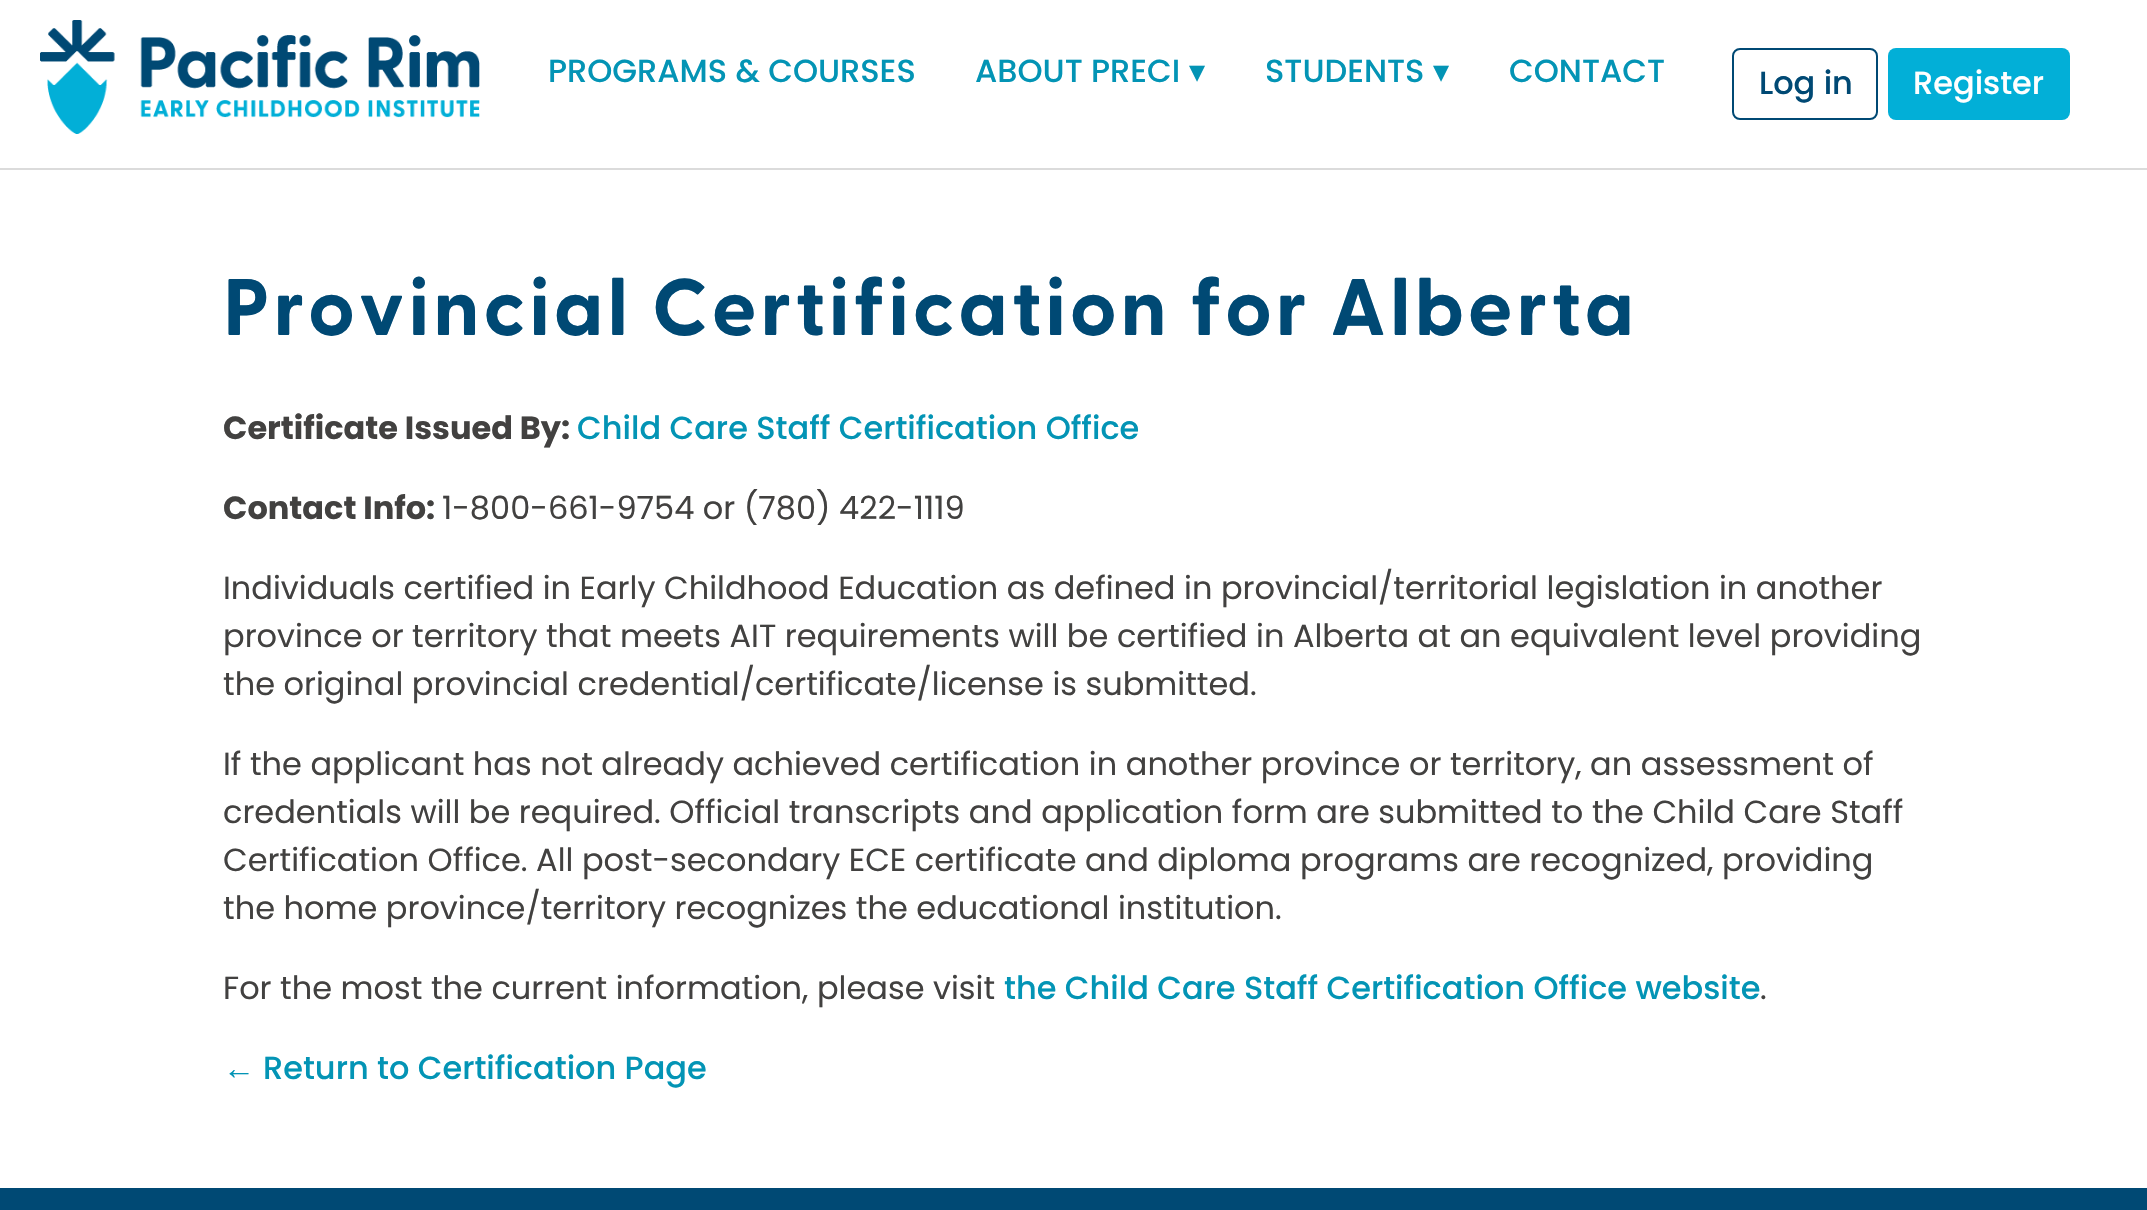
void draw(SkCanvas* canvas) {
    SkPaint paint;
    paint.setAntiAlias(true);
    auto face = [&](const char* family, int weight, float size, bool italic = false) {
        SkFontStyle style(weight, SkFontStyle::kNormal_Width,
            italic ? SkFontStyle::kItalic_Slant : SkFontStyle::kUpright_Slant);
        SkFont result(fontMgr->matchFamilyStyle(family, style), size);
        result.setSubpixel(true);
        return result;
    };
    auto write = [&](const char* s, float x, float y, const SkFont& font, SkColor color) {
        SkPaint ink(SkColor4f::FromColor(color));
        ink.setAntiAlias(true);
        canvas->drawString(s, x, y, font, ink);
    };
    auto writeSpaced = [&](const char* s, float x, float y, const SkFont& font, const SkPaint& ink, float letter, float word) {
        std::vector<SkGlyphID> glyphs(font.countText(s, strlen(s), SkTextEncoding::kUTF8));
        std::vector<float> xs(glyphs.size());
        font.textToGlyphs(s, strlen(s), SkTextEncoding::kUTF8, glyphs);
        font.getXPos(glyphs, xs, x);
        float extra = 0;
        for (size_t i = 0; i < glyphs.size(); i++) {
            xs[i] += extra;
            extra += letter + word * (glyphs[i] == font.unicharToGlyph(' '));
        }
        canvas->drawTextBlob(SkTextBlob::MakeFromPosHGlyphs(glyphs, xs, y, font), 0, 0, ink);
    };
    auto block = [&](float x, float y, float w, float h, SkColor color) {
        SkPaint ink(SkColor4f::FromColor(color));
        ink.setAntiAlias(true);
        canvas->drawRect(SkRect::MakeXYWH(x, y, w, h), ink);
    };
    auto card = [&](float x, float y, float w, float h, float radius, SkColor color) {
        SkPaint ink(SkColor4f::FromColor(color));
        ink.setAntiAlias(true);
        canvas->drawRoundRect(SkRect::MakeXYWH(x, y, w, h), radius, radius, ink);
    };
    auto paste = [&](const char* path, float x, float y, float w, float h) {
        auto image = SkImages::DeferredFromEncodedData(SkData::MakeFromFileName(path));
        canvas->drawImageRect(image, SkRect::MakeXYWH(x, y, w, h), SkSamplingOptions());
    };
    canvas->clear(SK_ColorWHITE);
    block(0, 168, 2147, 2, SkColorSetRGB(219, 219, 219));
    paste("pic1.png", 40, 20, 440, 114);
    auto kFont1 = face("Poppins", 500, 32);
    write("PROGRAMS & COURSES", 548, 82, kFont1, SkColorSetRGB(3, 148, 181));
    write("ABOUT PRECI", 975, 82, kFont1, SkColorSetRGB(3, 148, 181));
    auto kFont2 = face("DejaVu Sans", 400, 32);
    write("▾", 1189, 82, kFont2, SkColorSetRGB(3, 148, 181));
    write("STUDENTS", 1265, 82, kFont1, SkColorSetRGB(3, 148, 181));
    write("▾", 1433, 82, kFont2, SkColorSetRGB(3, 148, 181));
    write("CONTACT", 1509, 82, kFont1, SkColorSetRGB(3, 148, 181));
    paint.setStyle(SkPaint::kStroke_Style);
    paint.setStrokeWidth(2);
    paint.setColor(SkColorSetRGB(0, 73, 116));
    canvas->drawRoundRect(SkRect::MakeXYWH(1733, 49, 144, 70), 7, 7, paint);
    write("Log in", 1759, 94, kFont1, SkColorSetRGB(0, 73, 116));
    card(1888, 48, 182, 72, 8, SkColorSetRGB(2, 175, 215));
    write("Register", 1913, 94, kFont1, SK_ColorWHITE);
    auto kFont3 = face("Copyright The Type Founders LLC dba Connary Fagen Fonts", 700, 80);
    paint.setStyle(SkPaint::kFill_Style);
    writeSpaced("Provincial Certification for Alberta", 223, 335, kFont3, paint, 4, 0);
    auto kFont4 = face("Poppins", 700, 32);
    write("Certificate Issued By:", 223, 439, kFont4, SkColorSetRGB(66, 65, 64));
    write("Child Care Staff Certification Office", 577, 439, kFont1, SkColorSetRGB(3, 148, 181));
    write("Contact Info:", 223, 519, kFont4, SkColorSetRGB(66, 65, 64));
    auto kFont5 = face("Poppins", 400, 32);
    write("1-800-661-9754 or (780) 422-1119", 442, 519, kFont5, SkColorSetRGB(66, 65, 64));
    write("Individuals certified in Early Childhood Education as defined in provincial/territorial legislation in another", 223, 599, kFont5, SkColorSetRGB(66, 65, 64));
    write("province or territory that meets AIT requirements will be certified in Alberta at an equivalent level providing", 223, 647, kFont5, SkColorSetRGB(66, 65, 64));
    write("the original provincial credential/certificate/license is submitted.", 223, 695, kFont5, SkColorSetRGB(66, 65, 64));
    write("If the applicant has not already achieved certification in another province or territory, an assessment of", 223, 775, kFont5, SkColorSetRGB(66, 65, 64));
    write("credentials will be required. Official transcripts and application form are submitted to the Child Care Staff", 223, 823, kFont5, SkColorSetRGB(66, 65, 64));
    write("Certification Office. All post-secondary ECE certificate and diploma programs are recognized, providing", 223, 871, kFont5, SkColorSetRGB(66, 65, 64));
    write("the home province/territory recognizes the educational institution.", 223, 919, kFont5, SkColorSetRGB(66, 65, 64));
    write("For the most the current information, please visit", 223, 999, kFont5, SkColorSetRGB(66, 65, 64));
    write("the Child Care Staff Certification Office website", 1004, 999, kFont1, SkColorSetRGB(3, 148, 181));
    write(".", 1760, 999, kFont5, SkColorSetRGB(66, 65, 64));
    auto kFont6 = face("Liberation Sans", 400, 32);
    write("←", 223, 1079, kFont6, SkColorSetRGB(3, 148, 181));
    write("Return to Certification Page", 263, 1079, kFont1, SkColorSetRGB(3, 148, 181));
    block(0, 1188, 2147, 22, SkColorSetRGB(0, 73, 116));
}
